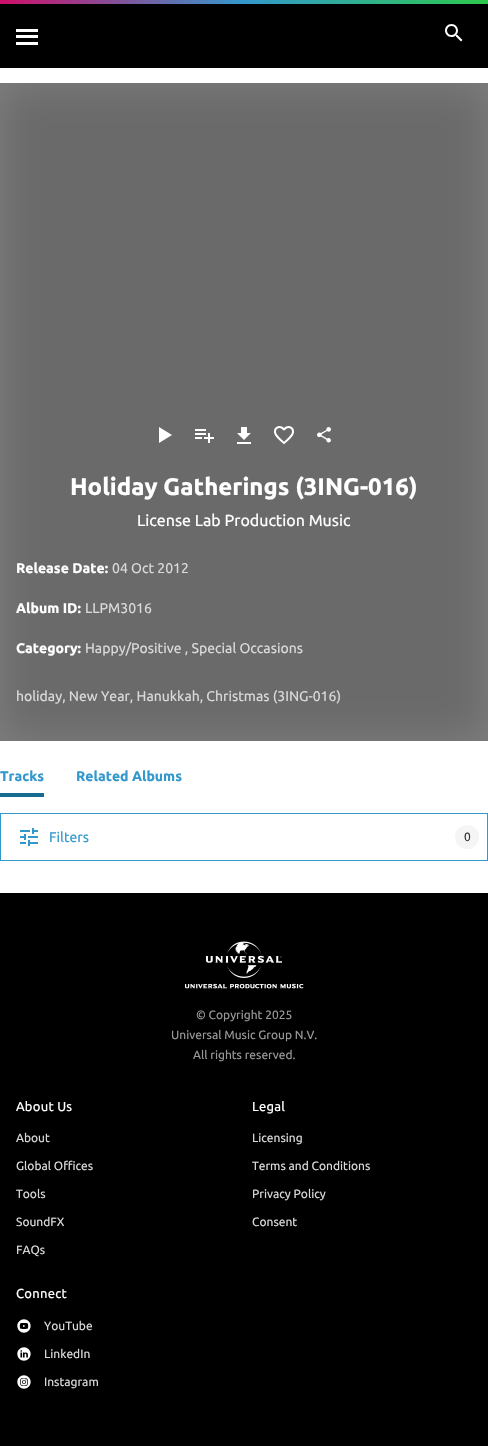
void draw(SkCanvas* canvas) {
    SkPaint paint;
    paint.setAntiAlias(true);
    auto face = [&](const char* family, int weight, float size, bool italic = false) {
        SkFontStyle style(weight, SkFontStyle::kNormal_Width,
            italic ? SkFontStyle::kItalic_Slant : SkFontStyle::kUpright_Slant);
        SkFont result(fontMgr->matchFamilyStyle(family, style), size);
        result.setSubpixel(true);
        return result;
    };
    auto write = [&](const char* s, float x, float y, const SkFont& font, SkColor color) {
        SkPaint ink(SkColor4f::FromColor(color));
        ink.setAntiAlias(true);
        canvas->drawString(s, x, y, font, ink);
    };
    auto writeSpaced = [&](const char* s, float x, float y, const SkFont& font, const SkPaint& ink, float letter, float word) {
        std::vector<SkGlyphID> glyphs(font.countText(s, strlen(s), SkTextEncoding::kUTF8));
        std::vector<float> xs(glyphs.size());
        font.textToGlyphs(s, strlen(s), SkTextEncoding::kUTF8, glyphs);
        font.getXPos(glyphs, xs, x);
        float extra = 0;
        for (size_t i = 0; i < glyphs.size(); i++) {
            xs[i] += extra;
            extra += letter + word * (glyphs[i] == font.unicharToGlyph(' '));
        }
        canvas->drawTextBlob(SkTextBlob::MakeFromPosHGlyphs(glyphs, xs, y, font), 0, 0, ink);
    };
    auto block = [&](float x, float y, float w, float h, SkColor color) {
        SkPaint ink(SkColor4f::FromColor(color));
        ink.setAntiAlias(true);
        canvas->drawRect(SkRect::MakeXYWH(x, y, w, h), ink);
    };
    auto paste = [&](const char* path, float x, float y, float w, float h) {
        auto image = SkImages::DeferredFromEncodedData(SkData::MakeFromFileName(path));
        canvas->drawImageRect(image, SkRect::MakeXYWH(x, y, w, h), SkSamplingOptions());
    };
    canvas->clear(SK_ColorWHITE);
    block(0, 83, 488, 658, SkColorSetRGB(128, 128, 128));
    {
        const SkColor colors[] = {SkColorSetRGB(206, 15, 105), SkColorSetRGB(51, 153, 204), SkColorSetRGB(45, 200, 77)};
        const float stops[] = {0, 0.5f, 1};
        const SkPoint ends[] = {{0, 2}, {488, 2}};
        paint.setShader(SkGradientShader::MakeLinear(ends, colors, stops, 3, SkTileMode::kClamp));
        paint.setAlpha(255);
    }
    canvas->drawRect(SkRect::MakeXYWH(0, 0, 488, 4), paint);
    block(0, 793, 44, 4, SkColorSetRGB(23, 108, 144));
    canvas->save();
    canvas->clipRect(SkRect::MakeXYWH(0, 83, 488, 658));
    paint.setShader(nullptr);
    paint.setColor(SkColorSetRGB(106, 106, 106));
    paint.setMaskFilter(SkMaskFilter::MakeBlur(kNormal_SkBlurStyle, 20));
    canvas->drawRect(SkRect::MakeXYWH(0, 83, 488, 658), paint);
    paint.setMaskFilter(nullptr);
    canvas->restore();
    block(0, 4, 488, 64, SK_ColorBLACK);
    block(16, 35, 22, 3, SK_ColorWHITE);
    block(16, 29, 22, 3, SK_ColorWHITE);
    block(16, 42, 22, 3, SK_ColorWHITE);
    paste("pic1.png", 445, 24, 18, 18);
    paste("pic2.png", 159, 427, 13, 16);
    paste("pic3.png", 195, 429, 19, 14);
    paste("pic4.png", 237, 427, 14, 17);
    paste("pic5.png", 274, 426, 20, 19);
    paste("pic6.png", 317, 427, 14, 16);
    auto kFont1 = face("Ubuntu", 700, 24);
    write("Holiday Gatherings (3ING-016)", 70, 495, kFont1, SK_ColorWHITE);
    auto kFont2 = face("Ubuntu", 400, 16);
    write("License Lab Production Music", 137, 526, kFont2, SK_ColorWHITE);
    auto kFont3 = face("Ubuntu", 700, 14);
    write("Release Date:", 16, 573, kFont3, SK_ColorWHITE);
    auto kFont4 = face("Ubuntu", 400, 14);
    write("04 Oct 2012", 112, 573, kFont4, SkColorSetRGB(218, 218, 218));
    write("Album ID:", 16, 613, kFont3, SK_ColorWHITE);
    write("LLPM3016", 85, 613, kFont4, SkColorSetRGB(218, 218, 218));
    write("Category:", 16, 653, kFont3, SK_ColorWHITE);
    write("Happy/Positive , Special Occasions", 85, 653, kFont4, SkColorSetRGB(218, 218, 218));
    write("holiday, New Year, Hanukkah, Christmas (3ING-016)", 16, 701, kFont4, SkColorSetRGB(218, 218, 218));
    write("Tracks", 0, 781, kFont3, SkColorSetRGB(51, 153, 204));
    write("Related Albums", 76, 781, kFont3, SkColorSetRGB(51, 153, 204));
    paint.setStyle(SkPaint::kStroke_Style);
    paint.setStrokeWidth(1);
    paint.setColor(SkColorSetRGB(51, 153, 204));
    canvas->drawRect(SkRect::MakeXYWH(0.5f, 813.5f, 487, 47), paint);
    paste("pic7.png", 20, 828, 18, 18);
    write("Filters", 49, 842, kFont4, SkColorSetRGB(51, 153, 204));
    paint.setStyle(SkPaint::kFill_Style);
    paint.setColor(SkColorSetRGB(245, 245, 245));
    canvas->drawCircle(467, 837, 12, paint);
    auto kFont5 = face("Ubuntu", 400, 12);
    write("0", 464, 841, kFont5, SkColorSetRGB(51, 51, 51));
    block(0, 893, 488, 553, SK_ColorBLACK);
    paste("pic8.png", 184, 941, 120, 48);
    write("© Copyright 2025", 196, 1019, kFont5, SkColorSetRGB(153, 153, 153));
    write("Universal Music Group N.V.", 171, 1039, kFont5, SkColorSetRGB(153, 153, 153));
    write("All rights reserved.", 193, 1059, kFont5, SkColorSetRGB(153, 153, 153));
    auto kFont6 = face("Ubuntu", 400, 13);
    paint.setColor(SK_ColorWHITE);
    writeSpaced("About Us", 16, 1111, kFont6, paint, 0.25f, 0);
    write("About", 16, 1142, kFont5, SkColorSetRGB(218, 218, 218));
    write("Global Offices", 16, 1170, kFont5, SkColorSetRGB(218, 218, 218));
    write("Tools", 16, 1198, kFont5, SkColorSetRGB(218, 218, 218));
    write("SoundFX", 16, 1226, kFont5, SkColorSetRGB(218, 218, 218));
    write("FAQs", 16, 1254, kFont5, SkColorSetRGB(218, 218, 218));
    writeSpaced("Legal", 252, 1111, kFont6, paint, 0.25f, 0);
    write("Licensing", 252, 1142, kFont5, SkColorSetRGB(218, 218, 218));
    write("Terms and Conditions", 252, 1170, kFont5, SkColorSetRGB(218, 218, 218));
    write("Privacy Policy", 252, 1198, kFont5, SkColorSetRGB(218, 218, 218));
    write("Consent", 252, 1226, kFont5, SkColorSetRGB(218, 218, 218));
    writeSpaced("Connect", 16, 1298, kFont6, paint, 0.25f, 0);
    paste("pic9.png", 17, 1319, 14, 14);
    write("YouTube", 44, 1330, kFont5, SkColorSetRGB(218, 218, 218));
    paste("pic10.png", 17, 1347, 14, 14);
    write("LinkedIn", 44, 1358, kFont5, SkColorSetRGB(218, 218, 218));
    paste("pic11.png", 17, 1375, 14, 14);
    write("Instagram", 44, 1386, kFont5, SkColorSetRGB(218, 218, 218));
}
